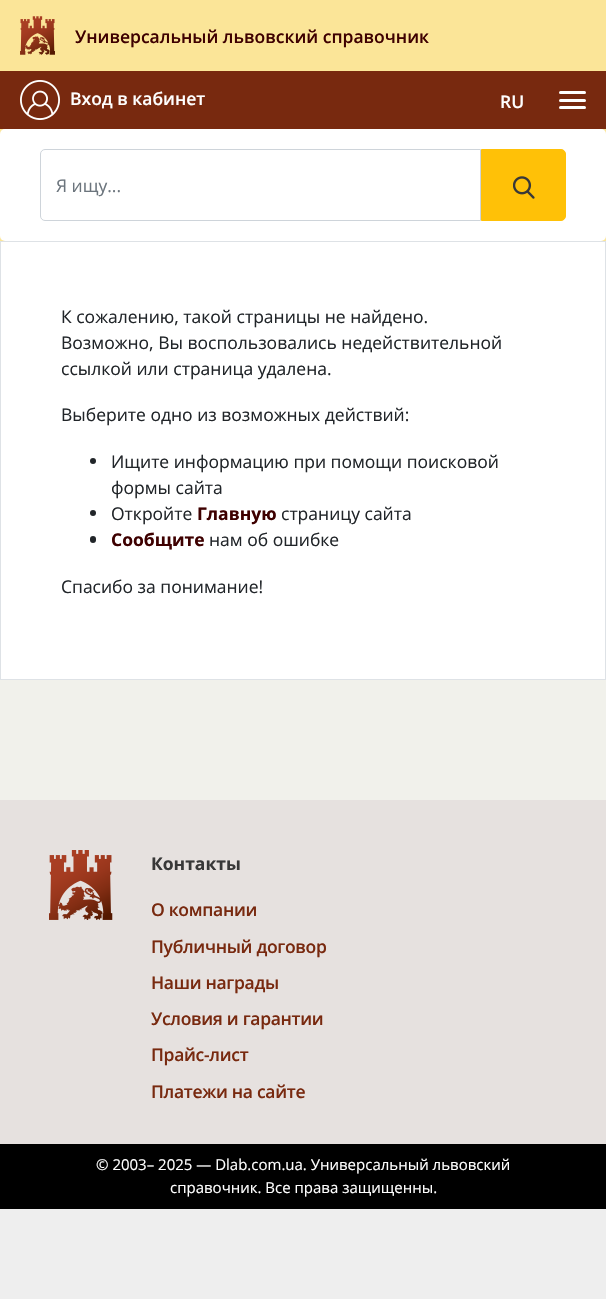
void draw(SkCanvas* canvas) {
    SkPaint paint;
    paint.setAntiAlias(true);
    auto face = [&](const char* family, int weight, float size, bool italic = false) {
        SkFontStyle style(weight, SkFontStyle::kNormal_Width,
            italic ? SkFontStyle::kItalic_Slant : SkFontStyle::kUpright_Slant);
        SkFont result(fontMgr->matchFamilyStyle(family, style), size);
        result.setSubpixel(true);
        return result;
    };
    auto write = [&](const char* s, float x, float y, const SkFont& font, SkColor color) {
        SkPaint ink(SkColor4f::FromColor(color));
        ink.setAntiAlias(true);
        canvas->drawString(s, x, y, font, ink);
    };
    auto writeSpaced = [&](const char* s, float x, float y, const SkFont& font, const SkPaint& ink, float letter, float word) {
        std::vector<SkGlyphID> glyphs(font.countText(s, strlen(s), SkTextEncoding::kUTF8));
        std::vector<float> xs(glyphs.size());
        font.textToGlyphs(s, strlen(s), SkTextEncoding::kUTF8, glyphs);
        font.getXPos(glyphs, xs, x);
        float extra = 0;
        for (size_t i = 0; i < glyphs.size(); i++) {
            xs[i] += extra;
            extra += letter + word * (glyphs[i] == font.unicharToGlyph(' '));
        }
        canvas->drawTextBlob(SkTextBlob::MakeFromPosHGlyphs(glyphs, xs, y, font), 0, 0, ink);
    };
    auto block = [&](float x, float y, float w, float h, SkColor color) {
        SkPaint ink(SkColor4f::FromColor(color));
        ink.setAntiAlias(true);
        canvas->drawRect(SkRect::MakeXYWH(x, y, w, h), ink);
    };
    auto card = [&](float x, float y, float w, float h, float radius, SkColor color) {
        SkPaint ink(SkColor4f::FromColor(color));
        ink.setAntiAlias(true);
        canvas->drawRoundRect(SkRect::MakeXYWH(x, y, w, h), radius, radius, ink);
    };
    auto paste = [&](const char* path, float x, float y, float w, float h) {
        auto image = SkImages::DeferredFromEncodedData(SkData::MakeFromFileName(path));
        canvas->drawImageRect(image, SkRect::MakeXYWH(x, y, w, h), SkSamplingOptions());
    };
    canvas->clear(SkColorSetRGB(238, 238, 238));
    block(0, 0, 606, 241, SkColorSetRGB(251, 229, 152));
    paste("pic1.png", 20, 16, 35, 39);
    auto kFont1 = face("Open Sans", 600, 17.5f);
    write("Универсальный львовский справочник", 75, 43, kFont1, SkColorSetRGB(62, 0, 0));
    block(0, 71, 606, 58, SkColorSetRGB(120, 41, 15));
    paste("pic2.png", 20, 80, 40, 40);
    write("Вход в кабинет", 70, 105, kFont1, SK_ColorWHITE);
    write("RU", 500, 108, kFont1, SK_ColorWHITE);
    card(559, 91, 27, 3, 1.5f, SK_ColorWHITE);
    card(559, 99, 27, 3, 1.5f, SK_ColorWHITE);
    card(559, 106, 27, 3, 1.5f, SK_ColorWHITE);
    card(0, 129, 606, 112, 5, SK_ColorWHITE);
    paint.setStyle(SkPaint::kStroke_Style);
    paint.setStrokeWidth(1);
    paint.setColor(SkColorSetRGB(206, 212, 218));
    canvas->drawPath(SkPathBuilder().moveTo(45, 149.5f).lineTo(480.5f, 149.5f).lineTo(480.5f, 220.5f).lineTo(45, 220.5f).cubicTo(42.5f, 220.5f, 40.5f, 218.5f, 40.5f, 216).lineTo(40.5f, 154).cubicTo(40.5f, 151.5f, 42.5f, 149.5f, 45, 149.5f).close().detach(), paint);
    auto kFont2 = face("Open Sans", 400, 17.5f);
    write("Я ищу...", 56, 192, kFont2, SkColorSetRGB(108, 117, 125));
    paint.setStyle(SkPaint::kFill_Style);
    paint.setColor(SkColorSetRGB(255, 193, 7));
    canvas->drawPath(SkPathBuilder().moveTo(481.5f, 149.5f).lineTo(561, 149.5f).cubicTo(563.5f, 149.5f, 565.5f, 151.5f, 565.5f, 154).lineTo(565.5f, 216).cubicTo(565.5f, 218.5f, 563.5f, 220.5f, 561, 220.5f).lineTo(481.5f, 220.5f).close().detach(), paint);
    paint.setStyle(SkPaint::kStroke_Style);
    canvas->drawPath(SkPathBuilder().moveTo(481.5f, 149.5f).lineTo(561, 149.5f).cubicTo(563.5f, 149.5f, 565.5f, 151.5f, 565.5f, 154).lineTo(565.5f, 216).cubicTo(565.5f, 218.5f, 563.5f, 220.5f, 561, 220.5f).lineTo(481.5f, 220.5f).close().detach(), paint);
    paste("pic3.png", 513, 176, 22, 23);
    block(0, 680, 606, 120, SkColorSetRGB(241, 241, 235));
    paint.setStyle(SkPaint::kFill_Style);
    paint.setColor(SK_ColorWHITE);
    canvas->drawRect(SkRect::MakeXYWH(0.5f, 241.5f, 605, 438), paint);
    paint.setStyle(SkPaint::kStroke_Style);
    paint.setColor(SkColorSetRGB(222, 226, 230));
    canvas->drawRect(SkRect::MakeXYWH(0.5f, 241.5f, 605, 438), paint);
    write("К сожалению, такой страницы не найдено.", 61, 323, kFont2, SkColorSetRGB(33, 37, 41));
    write("Возможно, Вы воспользовались недействительной", 61, 349, kFont2, SkColorSetRGB(33, 37, 41));
    write("ссылкой или страница удалена.", 61, 375, kFont2, SkColorSetRGB(33, 37, 41));
    write("Выберите одно из возможных действий:", 61, 421, kFont2, SkColorSetRGB(33, 37, 41));
    paint.setStyle(SkPaint::kFill_Style);
    paint.setColor(SkColorSetRGB(33, 37, 41));
    canvas->drawCircle(93, 461, 3, paint);
    write("Ищите информацию при помощи поисковой", 111, 468, kFont2, SkColorSetRGB(33, 37, 41));
    write("формы сайта", 111, 494, kFont2, SkColorSetRGB(33, 37, 41));
    canvas->drawCircle(93, 513, 3, paint);
    write("Откройте", 111, 520, kFont2, SkColorSetRGB(33, 37, 41));
    auto kFont3 = face("Open Sans", 700, 17.5f);
    write("Главную", 197, 520, kFont3, SkColorSetRGB(62, 0, 0));
    write("страницу сайта", 281, 520, kFont2, SkColorSetRGB(33, 37, 41));
    card(90, 536, 6, 7, 3, SkColorSetRGB(33, 37, 41));
    write("Сообщите", 111, 546, kFont3, SkColorSetRGB(62, 0, 0));
    write("нам об ошибке", 209, 546, kFont2, SkColorSetRGB(33, 37, 41));
    write("Спасибо за понимание!", 61, 593, kFont2, SkColorSetRGB(33, 37, 41));
    block(0, 800, 606, 344, SkColorSetRGB(230, 225, 223));
    paste("pic4.png", 49, 850, 64, 70);
    write("Контакты", 151, 870, kFont3, SkColorSetRGB(56, 56, 56));
    paint.setColor(SkColorSetRGB(120, 41, 15));
    writeSpaced("О компании", 151, 916, kFont1, paint, -0.3f, 0);
    writeSpaced("Публичный договор", 151, 953, kFont1, paint, -0.3f, 0);
    writeSpaced("Наши награды", 151, 989, kFont1, paint, -0.3f, 0);
    writeSpaced("Условия и гарантии", 151, 1025, kFont1, paint, -0.3f, 0);
    writeSpaced("Прайс-лист", 151, 1061, kFont1, paint, -0.3f, 0);
    writeSpaced("Платежи на сайте", 151, 1098, kFont1, paint, -0.3f, 0);
    block(0, 1144, 606, 65, SK_ColorBLACK);
    auto kFont4 = face("Open Sans", 400, 15);
    write("© 2003– 2025 — Dlab.com.ua. Универсальный львовский", 96, 1170, kFont4, SK_ColorWHITE);
    write("справочник. Все права защищенны.", 170, 1193, kFont4, SK_ColorWHITE);
}
